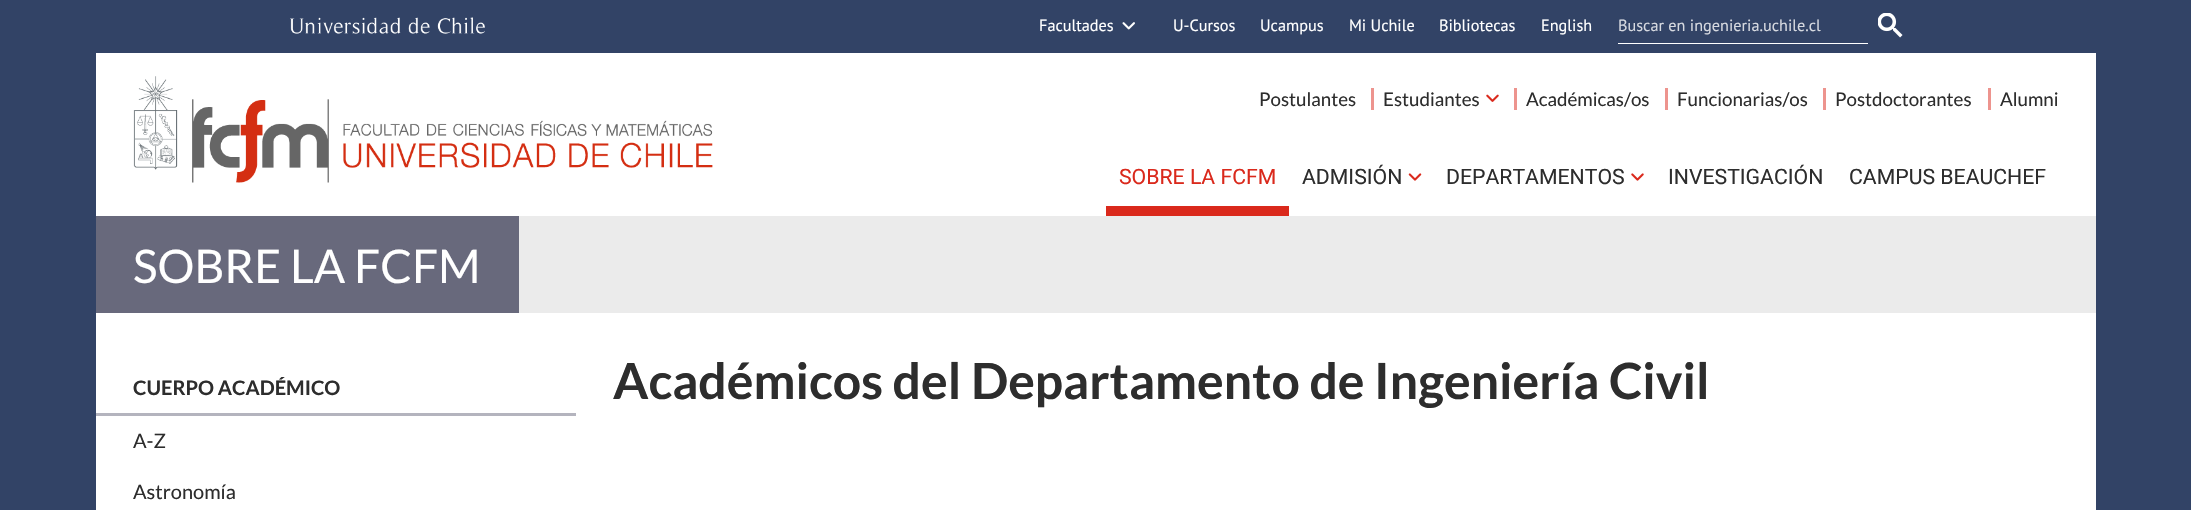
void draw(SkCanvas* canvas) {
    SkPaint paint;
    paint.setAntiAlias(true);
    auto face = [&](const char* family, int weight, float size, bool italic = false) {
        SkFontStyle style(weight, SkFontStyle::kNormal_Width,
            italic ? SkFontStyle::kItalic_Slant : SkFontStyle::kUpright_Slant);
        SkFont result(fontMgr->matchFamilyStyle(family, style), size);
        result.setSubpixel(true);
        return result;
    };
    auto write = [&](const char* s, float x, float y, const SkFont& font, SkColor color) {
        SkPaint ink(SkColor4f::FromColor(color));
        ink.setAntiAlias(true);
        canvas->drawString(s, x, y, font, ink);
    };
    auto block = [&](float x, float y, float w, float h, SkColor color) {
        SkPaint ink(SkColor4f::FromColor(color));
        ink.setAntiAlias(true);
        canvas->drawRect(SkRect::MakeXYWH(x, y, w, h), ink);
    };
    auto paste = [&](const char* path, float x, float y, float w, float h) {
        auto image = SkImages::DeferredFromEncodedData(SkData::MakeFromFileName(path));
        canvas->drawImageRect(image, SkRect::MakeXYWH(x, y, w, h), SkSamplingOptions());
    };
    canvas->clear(SkColorSetRGB(50, 67, 102));
    block(96, 53, 2000, 163, SK_ColorWHITE);
    paste("pic1.png", 290, 17, 195, 17);
    auto kFont1 = face("PT Sans", 400, 16.25f);
    write("Facultades", 1039, 31, kFont1, SK_ColorWHITE);
    paste("pic2.png", 1122, 22, 13, 8);
    write("U-Cursos", 1173, 31, kFont1, SK_ColorWHITE);
    write("Ucampus", 1260, 31, kFont1, SK_ColorWHITE);
    write("Mi Uchile", 1349, 31, kFont1, SK_ColorWHITE);
    write("Bibliotecas", 1439, 31, kFont1, SK_ColorWHITE);
    write("English", 1541, 31, kFont1, SK_ColorWHITE);
    write("Buscar en ingenieria.uchile.cl", 1618, 31, kFont1, SkColorSetRGB(214, 217, 224));
    block(1618, 43, 250, 1, SK_ColorWHITE);
    paste("pic3.png", 1878, 13, 25, 25);
    paste("pic4.png", 133, 76, 580, 107);
    auto kFont2 = face("Lato", 400, 18.75f);
    write("Postulantes", 1259, 106, kFont2, SkColorSetRGB(45, 45, 45));
    block(1371, 88, 3, 22, SkColorSetRGB(237, 148, 142));
    write("Estudiantes", 1383, 106, kFont2, SkColorSetRGB(45, 45, 45));
    paste("pic5.png", 1486, 94, 13, 8);
    block(1514, 88, 3, 22, SkColorSetRGB(237, 148, 142));
    write("Académicas/os", 1526, 106, kFont2, SkColorSetRGB(45, 45, 45));
    block(1665, 88, 3, 22, SkColorSetRGB(237, 148, 142));
    write("Funcionarias/os", 1677, 106, kFont2, SkColorSetRGB(45, 45, 45));
    block(1823, 88, 3, 22, SkColorSetRGB(237, 148, 142));
    write("Postdoctorantes", 1835, 106, kFont2, SkColorSetRGB(45, 45, 45));
    block(1988, 88, 3, 22, SkColorSetRGB(237, 148, 142));
    write("Alumni", 2000, 106, kFont2, SkColorSetRGB(45, 45, 45));
    auto kFont3 = face("Roboto", 400, 21.25f);
    write("SOBRE LA FCFM", 1119, 184, kFont3, SkColorSetRGB(218, 41, 28));
    block(1106, 206, 183, 10, SkColorSetRGB(218, 41, 28));
    write("ADMISIÓN", 1302, 184, kFont3, SkColorSetRGB(45, 45, 45));
    paste("pic6.png", 1408, 173, 14, 8);
    write("DEPARTAMENTOS", 1446, 184, kFont3, SkColorSetRGB(45, 45, 45));
    paste("pic7.png", 1631, 173, 13, 8);
    write("INVESTIGACIÓN", 1668, 184, kFont3, SkColorSetRGB(45, 45, 45));
    write("CAMPUS BEAUCHEF", 1849, 184, kFont3, SkColorSetRGB(45, 45, 45));
    block(96, 313, 2000, 197, SK_ColorWHITE);
    block(519, 216, 1577, 97, SkColorSetRGB(235, 235, 235));
    block(96, 216, 423, 97, SkColorSetRGB(104, 105, 124));
    auto kFont4 = face("Lato", 400, 46.25f);
    write("SOBRE LA FCFM", 133, 283, kFont4, SK_ColorWHITE);
    block(96, 413, 480, 3, SkColorSetRGB(180, 180, 190));
    auto kFont5 = face("Lato", 700, 20);
    write("CUERPO ACADÉMICO", 133, 395, kFont5, SkColorSetRGB(45, 45, 45));
    auto kFont6 = face("Lato", 400, 20);
    write("A-Z", 133, 448, kFont6, SkColorSetRGB(45, 45, 45));
    write("Astronomía", 133, 499, kFont6, SkColorSetRGB(45, 45, 45));
    auto kFont7 = face("Lato", 700, 49.9f);
    write("Académicos del Departamento de Ingeniería Civil", 613, 399, kFont7, SkColorSetRGB(45, 45, 45));
}
